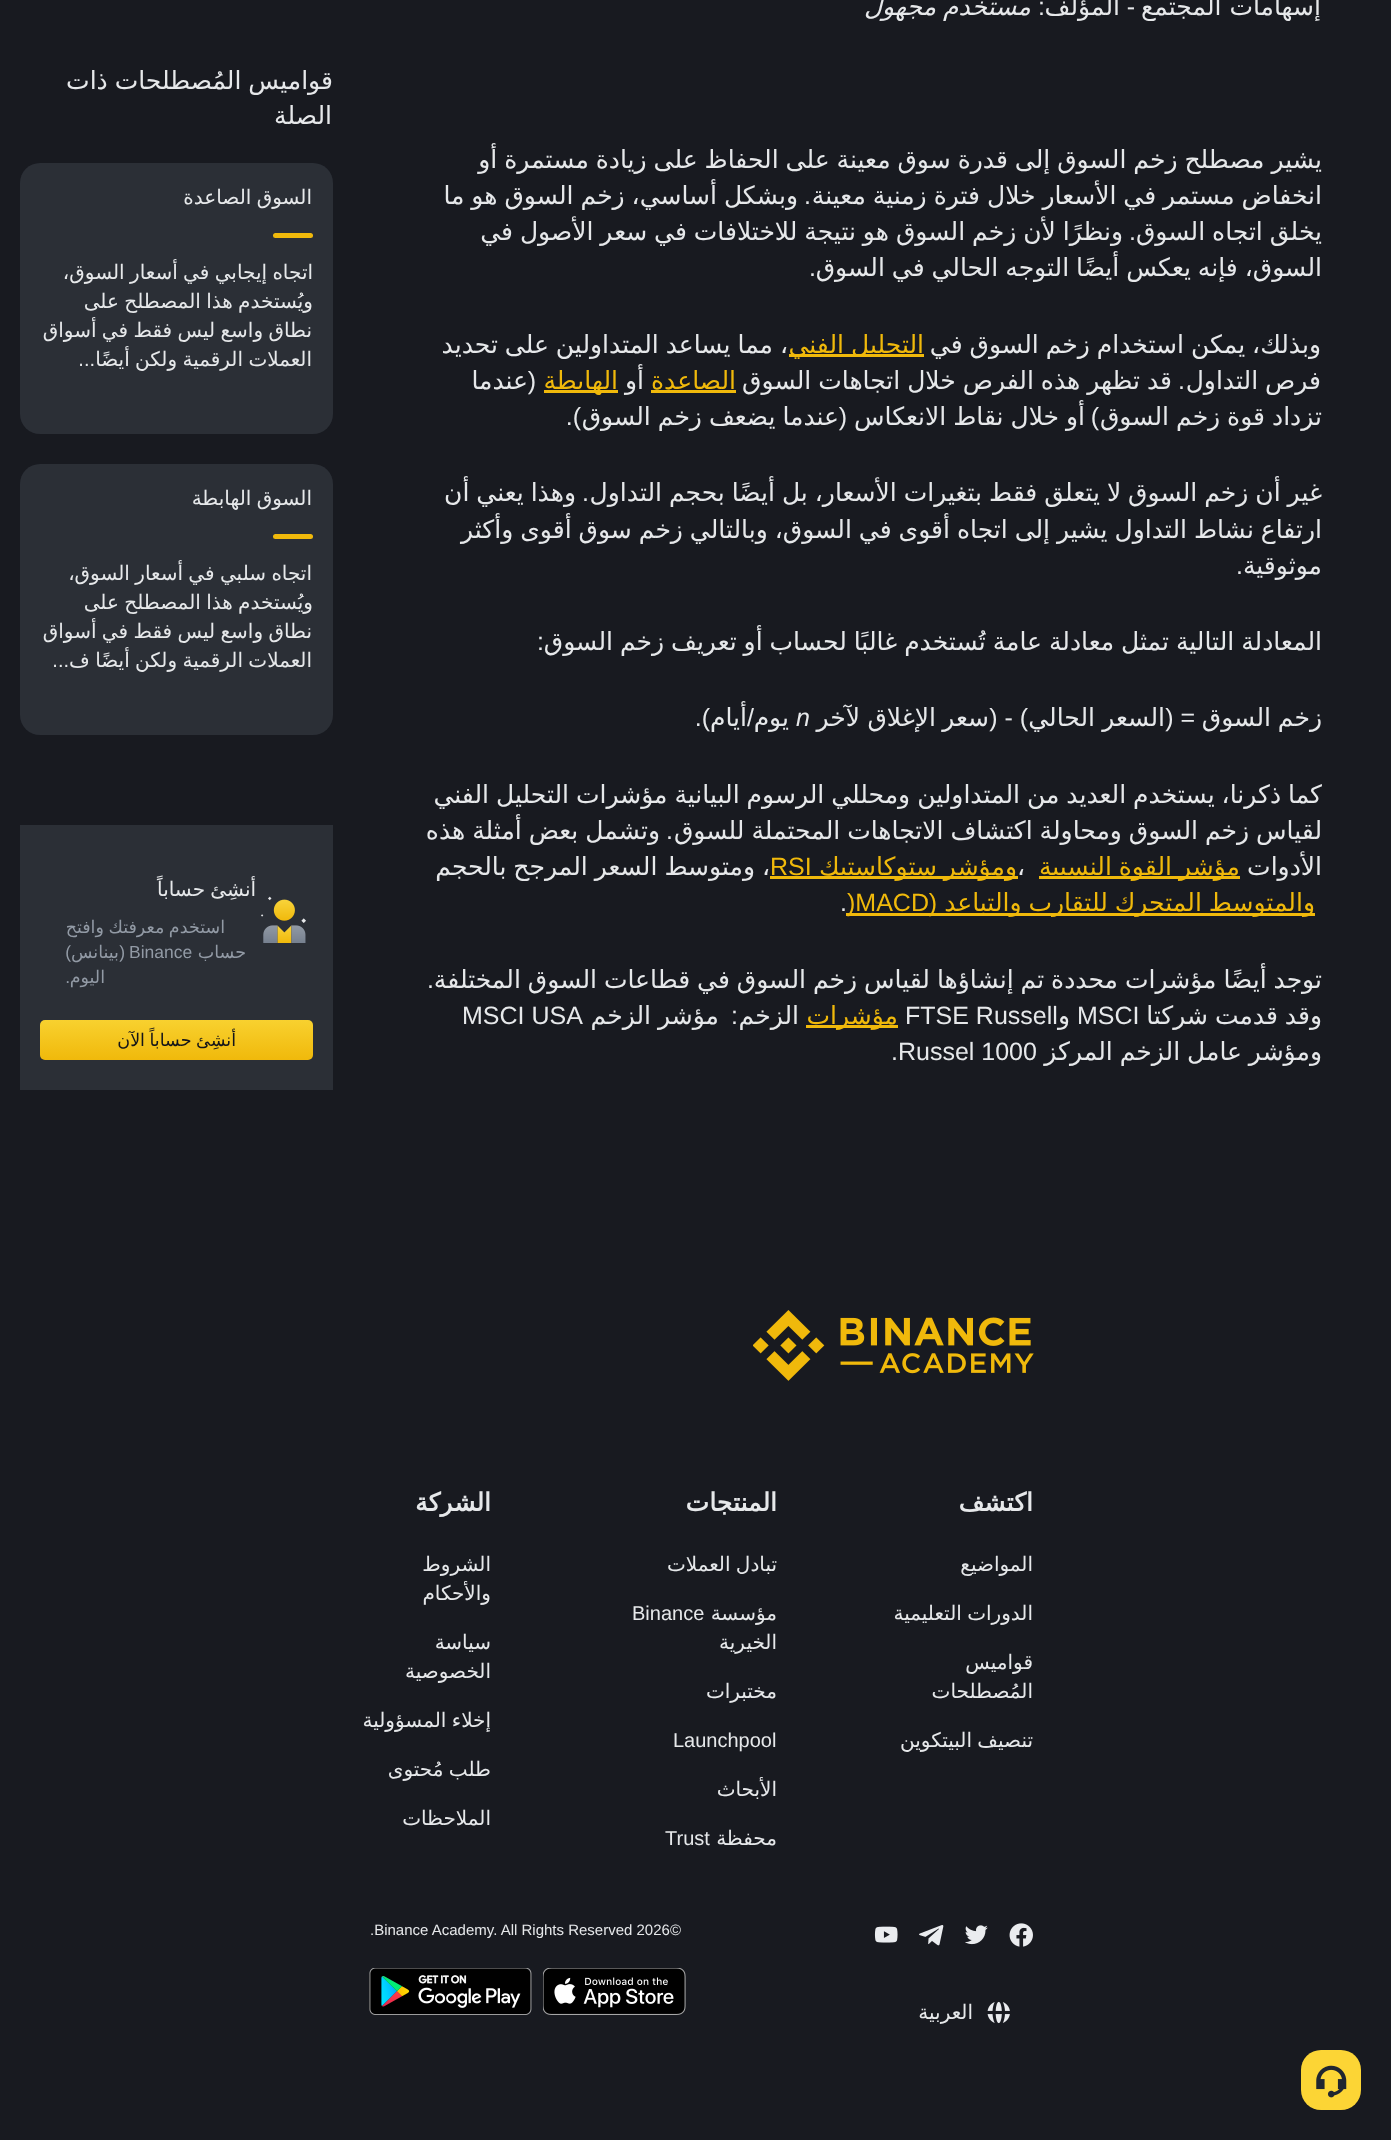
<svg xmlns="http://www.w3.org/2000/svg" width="1391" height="2140">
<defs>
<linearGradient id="g1" gradientUnits="userSpaceOnUse" x1="176" y1="1020" x2="176" y2="1060"><stop offset="0" stop-color="#f8d12f"/><stop offset="1" stop-color="#f0b90b"/></linearGradient>
</defs>
<rect width="100%" height="100%" fill="#181a20"/>
<text x="1321" y="15" style="font-family:DejaVu Sans;font-size:25px;direction:rtl;fill:#e6e8ea">إسهامات المجتمع</text>
<text x="1135" y="15" style="font-family:Liberation Sans;font-size:25px;direction:rtl;fill:#e6e8ea">-</text>
<text x="1120" y="15" style="font-family:DejaVu Sans;font-size:25px;direction:rtl;fill:#e6e8ea">المؤلف</text>
<text x="1045" y="15" style="font-family:Liberation Sans;font-size:25px;direction:rtl;fill:#e6e8ea">:</text>
<text x="1031" y="15" word-spacing="-1" style="font-family:DejaVu Sans;font-size:25px;font-style:italic;direction:rtl;fill:#e6e8ea">مستخدم مجهول</text>
<text x="1322" y="168" word-spacing="-1" style="font-family:DejaVu Sans;font-size:25px;direction:rtl;fill:#e6e8ea">يشير مصطلح زخم السوق إلى قدرة سوق معينة على الحفاظ على زيادة مستمرة أو</text>
<text x="1322" y="204" word-spacing="-1" style="font-family:DejaVu Sans;font-size:25px;direction:rtl;fill:#e6e8ea">انخفاض مستمر في الأسعار خلال فترة زمنية معينة</text>
<text x="811" y="204" style="font-family:Liberation Sans;font-size:25px;direction:rtl;fill:#e6e8ea">.</text>
<text x="798" y="204" word-spacing="-1" style="font-family:DejaVu Sans;font-size:25px;direction:rtl;fill:#e6e8ea">وبشكل أساسي، زخم السوق هو ما</text>
<text x="1322" y="240" word-spacing="-1" style="font-family:DejaVu Sans;font-size:25px;direction:rtl;fill:#e6e8ea">يخلق اتجاه السوق</text>
<text x="1136" y="240" style="font-family:Liberation Sans;font-size:25px;direction:rtl;fill:#e6e8ea">.</text>
<text x="1123" y="240" word-spacing="-1" style="font-family:DejaVu Sans;font-size:25px;direction:rtl;fill:#e6e8ea">ونظرًا لأن زخم السوق هو نتيجة للاختلافات في سعر الأصول في</text>
<text x="1322" y="276" word-spacing="-1" style="font-family:DejaVu Sans;font-size:25px;direction:rtl;fill:#e6e8ea">السوق، فإنه يعكس أيضًا التوجه الحالي في السوق</text>
<text x="816" y="276" style="font-family:Liberation Sans;font-size:25px;direction:rtl;fill:#e6e8ea">.</text>
<text x="1321" y="353" word-spacing="-1" style="font-family:DejaVu Sans;font-size:25px;direction:rtl;fill:#e6e8ea">وبذلك، يمكن استخدام زخم السوق في</text>
<rect x="789" y="354" width="135" height="3" fill="#f0b90b"/>
<text x="924" y="353" word-spacing="-1" style="font-family:DejaVu Sans;font-size:25px;direction:rtl;fill:#f0b90b">التحليل الفني</text>
<text x="788" y="353" word-spacing="-1" style="font-family:DejaVu Sans;font-size:25px;direction:rtl;fill:#e6e8ea">، مما يساعد المتداولين على تحديد</text>
<text x="1321" y="389" word-spacing="-1" style="font-family:DejaVu Sans;font-size:25px;direction:rtl;fill:#e6e8ea">فرص التداول</text>
<text x="1185" y="389" style="font-family:Liberation Sans;font-size:25px;direction:rtl;fill:#e6e8ea">.</text>
<text x="1172" y="389" word-spacing="-1" style="font-family:DejaVu Sans;font-size:25px;direction:rtl;fill:#e6e8ea">قد تظهر هذه الفرص خلال اتجاهات السوق</text>
<text x="736" y="389" style="font-family:DejaVu Sans;font-size:25px;direction:rtl;fill:#f0b90b">الصاعدة</text>
<rect x="651" y="390" width="85" height="3" fill="#f0b90b"/>
<text x="644" y="389" style="font-family:DejaVu Sans;font-size:25px;direction:rtl;fill:#e6e8ea">أو</text>
<rect x="544" y="390" width="74" height="3" fill="#f0b90b"/>
<text x="618" y="389" style="font-family:DejaVu Sans;font-size:25px;direction:rtl;fill:#f0b90b">الهابطة</text>
<text x="536" y="389" style="font-family:Liberation Sans;font-size:25px;direction:rtl;fill:#e6e8ea">(</text>
<text x="528" y="389" style="font-family:DejaVu Sans;font-size:25px;direction:rtl;fill:#e6e8ea">عندما</text>
<text x="1322" y="425" word-spacing="-1" style="font-family:DejaVu Sans;font-size:25px;direction:rtl;fill:#e6e8ea">تزداد قوة زخم السوق</text>
<text x="1099" y="425" style="font-family:Liberation Sans;font-size:25px;direction:rtl;fill:#e6e8ea">)</text>
<text x="1085" y="425" word-spacing="-1" style="font-family:DejaVu Sans;font-size:25px;direction:rtl;fill:#e6e8ea">أو خلال نقاط الانعكاس</text>
<text x="847" y="425" style="font-family:Liberation Sans;font-size:25px;direction:rtl;fill:#e6e8ea">(</text>
<text x="839" y="425" word-spacing="-1" style="font-family:DejaVu Sans;font-size:25px;direction:rtl;fill:#e6e8ea">عندما يضعف زخم السوق</text>
<text x="581" y="425" style="font-family:Liberation Sans;font-size:25px;direction:rtl;fill:#e6e8ea">).</text>
<text x="1322" y="501" word-spacing="-1" style="font-family:DejaVu Sans;font-size:25px;direction:rtl;fill:#e6e8ea">غير أن زخم السوق لا يتعلق فقط بتغيرات الأسعار، بل أيضًا بحجم التداول</text>
<text x="589" y="501" style="font-family:Liberation Sans;font-size:25px;direction:rtl;fill:#e6e8ea">.</text>
<text x="576" y="501" word-spacing="-1" style="font-family:DejaVu Sans;font-size:25px;direction:rtl;fill:#e6e8ea">وهذا يعني أن</text>
<text x="1322" y="538" word-spacing="-1" style="font-family:DejaVu Sans;font-size:25px;direction:rtl;fill:#e6e8ea">ارتفاع نشاط التداول يشير إلى اتجاه أقوى في السوق، وبالتالي زخم سوق أقوى وأكثر</text>
<text x="1322" y="574" style="font-family:DejaVu Sans;font-size:25px;direction:rtl;fill:#e6e8ea">موثوقية</text>
<text x="1243" y="574" style="font-family:Liberation Sans;font-size:25px;direction:rtl;fill:#e6e8ea">.</text>
<text x="1322" y="650" word-spacing="-1" style="font-family:DejaVu Sans;font-size:25px;direction:rtl;fill:#e6e8ea">المعادلة التالية تمثل معادلة عامة تُستخدم غالبًا لحساب أو تعريف زخم السوق</text>
<text x="544" y="650" style="font-family:Liberation Sans;font-size:25px;direction:rtl;fill:#e6e8ea">:</text>
<text x="1322" y="726" style="font-family:DejaVu Sans;font-size:25px;direction:rtl;fill:#e6e8ea">زخم</text>
<text x="1271" y="726" style="font-family:DejaVu Sans;font-size:25px;direction:rtl;fill:#e6e8ea">السوق</text>
<text x="1195" y="726" style="font-family:Liberation Sans;font-size:25px;direction:rtl;fill:#e6e8ea">= (</text>
<text x="1165" y="726" style="font-family:DejaVu Sans;font-size:25px;direction:rtl;fill:#e6e8ea">السعر</text>
<text x="1095" y="726" style="font-family:DejaVu Sans;font-size:25px;direction:rtl;fill:#e6e8ea">الحالي</text>
<text x="1028" y="726" style="font-family:Liberation Sans;font-size:25px;direction:rtl;fill:#e6e8ea">) - (</text>
<text x="989" y="726" style="font-family:DejaVu Sans;font-size:25px;direction:rtl;fill:#e6e8ea">سعر</text>
<text x="936" y="726" style="font-family:DejaVu Sans;font-size:25px;direction:rtl;fill:#e6e8ea">الإغلاق</text>
<text x="860" y="726" style="font-family:DejaVu Sans;font-size:25px;direction:rtl;fill:#e6e8ea">لآخر</text>
<text x="796" y="726" style="font-family:Liberation Sans;font-size:25px;font-style:italic;fill:#e6e8ea">n</text>
<text x="789" y="726" style="font-family:DejaVu Sans;font-size:25px;direction:rtl;fill:#e6e8ea">يوم</text>
<text x="754" y="726" style="font-family:Liberation Sans;font-size:25px;direction:rtl;fill:#e6e8ea">/</text>
<text x="747" y="726" style="font-family:DejaVu Sans;font-size:25px;direction:rtl;fill:#e6e8ea">أيام</text>
<text x="710" y="726" style="font-family:Liberation Sans;font-size:25px;direction:rtl;fill:#e6e8ea">).</text>
<text x="1322" y="803" word-spacing="-1" style="font-family:DejaVu Sans;font-size:25px;direction:rtl;fill:#e6e8ea">كما ذكرنا، يستخدم العديد من المتداولين ومحللي الرسوم البيانية مؤشرات التحليل الفني</text>
<text x="1322" y="839" word-spacing="-1" style="font-family:DejaVu Sans;font-size:25px;direction:rtl;fill:#e6e8ea">لقياس زخم السوق ومحاولة اكتشاف الاتجاهات المحتملة للسوق</text>
<text x="673" y="839" style="font-family:Liberation Sans;font-size:25px;direction:rtl;fill:#e6e8ea">.</text>
<text x="660" y="839" word-spacing="-1" style="font-family:DejaVu Sans;font-size:25px;direction:rtl;fill:#e6e8ea">وتشمل بعض أمثلة هذه</text>
<text x="1322" y="875" style="font-family:DejaVu Sans;font-size:25px;direction:rtl;fill:#e6e8ea">الأدوات</text>
<rect x="1039" y="876" width="201" height="3" fill="#f0b90b"/>
<text x="1240" y="875" word-spacing="-1" style="font-family:DejaVu Sans;font-size:25px;direction:rtl;fill:#f0b90b">مؤشر القوة النسبية</text>
<text x="1017" y="875" style="font-family:DejaVu Sans;font-size:25px;fill:#e6e8ea">،</text>
<rect x="770" y="876" width="248" height="3" fill="#f0b90b"/>
<text x="1017" y="875" word-spacing="-1" style="font-family:DejaVu Sans;font-size:25px;direction:rtl;fill:#f0b90b">ومؤشر ستوكاستيك</text>
<text x="770" y="875" style="font-family:Liberation Sans;font-size:25px;fill:#f0b90b">RSI</text>
<text x="770" y="875" word-spacing="-1" style="font-family:DejaVu Sans;font-size:25px;direction:rtl;fill:#e6e8ea">، ومتوسط السعر المرجح بالحجم</text>
<rect x="846" y="913" width="469" height="3" fill="#f0b90b"/>
<text x="1315" y="911" word-spacing="-1" style="font-family:DejaVu Sans;font-size:25px;direction:rtl;fill:#f0b90b">والمتوسط المتحرك للتقارب والتباعد</text>
<text x="937" y="911" style="font-family:Liberation Sans;font-size:25px;direction:rtl;fill:#f0b90b">(</text>
<text x="847" y="911" style="font-family:Liberation Sans;font-size:25px;fill:#f0b90b">)MACD</text>
<text x="840" y="911" style="font-family:Liberation Sans;font-size:25px;fill:#e6e8ea">.</text>
<text x="1322" y="988" word-spacing="-1" style="font-family:DejaVu Sans;font-size:25px;direction:rtl;fill:#e6e8ea">توجد أيضًا مؤشرات محددة تم إنشاؤها لقياس زخم السوق في قطاعات السوق المختلفة</text>
<text x="434" y="988" style="font-family:Liberation Sans;font-size:25px;direction:rtl;fill:#e6e8ea">.</text>
<text x="1322" y="1024" word-spacing="-1" style="font-family:DejaVu Sans;font-size:25px;direction:rtl;fill:#e6e8ea">وقد قدمت شركتا</text>
<text x="1077" y="1024" style="font-family:Liberation Sans;font-size:25px;fill:#e6e8ea">MSCI</text>
<text x="1070" y="1024" style="font-family:DejaVu Sans;font-size:25px;direction:rtl;fill:#e6e8ea">و</text>
<text x="905" y="1024" style="font-family:Liberation Sans;font-size:25px;fill:#e6e8ea">FTSE Russell</text>
<rect x="806" y="1025" width="92" height="3" fill="#f0b90b"/>
<text x="898" y="1024" style="font-family:DejaVu Sans;font-size:25px;direction:rtl;fill:#f0b90b">مؤشرات</text>
<text x="799" y="1024" style="font-family:DejaVu Sans;font-size:25px;direction:rtl;fill:#e6e8ea">الزخم</text>
<text x="738" y="1024" style="font-family:Liberation Sans;font-size:25px;direction:rtl;fill:#e6e8ea">:</text>
<text x="719" y="1024" word-spacing="-1" style="font-family:DejaVu Sans;font-size:25px;direction:rtl;fill:#e6e8ea">مؤشر الزخم</text>
<text x="462" y="1024" style="font-family:Liberation Sans;font-size:25px;fill:#e6e8ea">MSCI USA</text>
<text x="1322" y="1060" word-spacing="-1" style="font-family:DejaVu Sans;font-size:25px;direction:rtl;fill:#e6e8ea">ومؤشر عامل الزخم المركز</text>
<text x="891" y="1060" style="font-family:Liberation Sans;font-size:25px;fill:#e6e8ea">.Russel 1000</text>
<text x="333" y="89" word-spacing="-1" style="font-family:DejaVu Sans;font-size:25px;direction:rtl;fill:#e6e8ea">قواميس المُصطلحات ذات</text>
<text x="332" y="124" style="font-family:DejaVu Sans;font-size:25px;direction:rtl;fill:#e6e8ea">الصلة</text>
<rect x="20" y="163" width="313" height="271" rx="20" fill="#2b2f36"/>
<text x="312" y="204" word-spacing="-1" style="font-family:DejaVu Sans;font-size:20px;direction:rtl;fill:#e6e8ea">السوق الصاعدة</text>
<rect x="273" y="233" width="40" height="5" rx="2.5" fill="#f0b90b"/>
<text x="313" y="279" word-spacing="-1" style="font-family:DejaVu Sans;font-size:20px;direction:rtl;fill:#e6e8ea">اتجاه إيجابي في أسعار السوق،</text>
<text x="313" y="308" word-spacing="-1" style="font-family:DejaVu Sans;font-size:20px;direction:rtl;fill:#e6e8ea">ويُستخدم هذا المصطلح على</text>
<text x="312" y="337" word-spacing="-1" style="font-family:DejaVu Sans;font-size:20px;direction:rtl;fill:#e6e8ea">نطاق واسع ليس فقط في أسواق</text>
<text x="312" y="366" word-spacing="-1" style="font-family:DejaVu Sans;font-size:20px;direction:rtl;fill:#e6e8ea">العملات الرقمية ولكن أيضًا</text>
<text x="95" y="366" style="font-family:Liberation Sans;font-size:20px;direction:rtl;fill:#e6e8ea">...</text>
<rect x="20" y="464" width="313" height="271" rx="20" fill="#2b2f36"/>
<text x="312" y="505" word-spacing="-1" style="font-family:DejaVu Sans;font-size:20px;direction:rtl;fill:#e6e8ea">السوق الهابطة</text>
<rect x="273" y="534" width="40" height="5" rx="2.5" fill="#f0b90b"/>
<text x="312" y="580" word-spacing="-1" style="font-family:DejaVu Sans;font-size:20px;direction:rtl;fill:#e6e8ea">اتجاه سلبي في أسعار السوق،</text>
<text x="313" y="609" word-spacing="-1" style="font-family:DejaVu Sans;font-size:20px;direction:rtl;fill:#e6e8ea">ويُستخدم هذا المصطلح على</text>
<text x="312" y="638" word-spacing="-1" style="font-family:DejaVu Sans;font-size:20px;direction:rtl;fill:#e6e8ea">نطاق واسع ليس فقط في أسواق</text>
<text x="312" y="667" word-spacing="-1" style="font-family:DejaVu Sans;font-size:20px;direction:rtl;fill:#e6e8ea">العملات الرقمية ولكن أيضًا ف</text>
<text x="69" y="667" style="font-family:Liberation Sans;font-size:20px;direction:rtl;fill:#e6e8ea">...</text>
<rect x="20" y="825" width="313" height="265" fill="#2b2f36"/>
<image x="261" y="896" width="45" height="47" href="media/1.png"/>
<text x="256" y="896" word-spacing="-1" style="font-family:DejaVu Sans;font-size:20px;direction:rtl;fill:#e6e8ea">أنشِئ حساباً</text>
<text x="225" y="933" word-spacing="-1" style="font-family:DejaVu Sans;font-size:17.5px;direction:rtl;fill:#929aa5">استخدم معرفتك وافتح</text>
<text x="246" y="958" style="font-family:DejaVu Sans;font-size:17.5px;direction:rtl;fill:#929aa5">حساب</text>
<text x="129" y="958" style="font-family:Liberation Sans;font-size:17.5px;fill:#929aa5">Binance</text>
<text x="125" y="958" style="font-family:Liberation Sans;font-size:17.5px;direction:rtl;fill:#929aa5">(</text>
<text x="119" y="958" style="font-family:DejaVu Sans;font-size:17.5px;direction:rtl;fill:#929aa5">بينانس</text>
<text x="71" y="958" style="font-family:Liberation Sans;font-size:17.5px;direction:rtl;fill:#929aa5">)</text>
<text x="105" y="983" style="font-family:DejaVu Sans;font-size:17.5px;direction:rtl;fill:#929aa5">اليوم</text>
<text x="70" y="983" style="font-family:Liberation Sans;font-size:17.5px;direction:rtl;fill:#929aa5">.</text>
<rect x="40" y="1020" width="273" height="40" rx="5" fill="url(#g1)"/>
<text x="236" y="1046" word-spacing="-1" style="font-family:DejaVu Sans;font-size:17.5px;direction:rtl;fill:#14151a">أنشِئ حساباً الآن</text>
<image x="753" y="1310" width="281" height="71" href="media/2.png"/>
<text x="1033" y="1511" style="font-family:DejaVu Sans;font-size:25px;font-weight:bold;direction:rtl;fill:#e6e8ea">اكتشف</text>
<text x="1033" y="1571" style="font-family:DejaVu Sans;font-size:20px;direction:rtl;fill:#e6e8ea">المواضيع</text>
<text x="1033" y="1620" word-spacing="-1" style="font-family:DejaVu Sans;font-size:20px;direction:rtl;fill:#e6e8ea">الدورات التعليمية</text>
<text x="1033" y="1669" style="font-family:DejaVu Sans;font-size:20px;direction:rtl;fill:#e6e8ea">قواميس</text>
<text x="1033" y="1698" style="font-family:DejaVu Sans;font-size:20px;direction:rtl;fill:#e6e8ea">المُصطلحات</text>
<text x="1033" y="1747" word-spacing="-1" style="font-family:DejaVu Sans;font-size:20px;direction:rtl;fill:#e6e8ea">تنصيف البيتكوين</text>
<text x="777" y="1511" style="font-family:DejaVu Sans;font-size:25px;font-weight:bold;direction:rtl;fill:#e6e8ea">المنتجات</text>
<text x="777" y="1571" word-spacing="-1" style="font-family:DejaVu Sans;font-size:20px;direction:rtl;fill:#e6e8ea">تبادل العملات</text>
<text x="777" y="1620" style="font-family:DejaVu Sans;font-size:20px;direction:rtl;fill:#e6e8ea">مؤسسة</text>
<text x="632" y="1620" style="font-family:Liberation Sans;font-size:20px;fill:#e6e8ea">Binance</text>
<text x="777" y="1649" style="font-family:DejaVu Sans;font-size:20px;direction:rtl;fill:#e6e8ea">الخيرية</text>
<text x="777" y="1698" style="font-family:DejaVu Sans;font-size:20px;direction:rtl;fill:#e6e8ea">مختبرات</text>
<text x="673" y="1747" style="font-family:Liberation Sans;font-size:20px;fill:#e6e8ea">Launchpool</text>
<text x="777" y="1796" style="font-family:DejaVu Sans;font-size:20px;direction:rtl;fill:#e6e8ea">الأبحاث</text>
<text x="777" y="1845" style="font-family:DejaVu Sans;font-size:20px;direction:rtl;fill:#e6e8ea">محفظة</text>
<text x="665" y="1845" style="font-family:Liberation Sans;font-size:20px;fill:#e6e8ea">Trust</text>
<text x="491" y="1511" style="font-family:DejaVu Sans;font-size:25px;font-weight:bold;direction:rtl;fill:#e6e8ea">الشركة</text>
<text x="491" y="1571" style="font-family:DejaVu Sans;font-size:20px;direction:rtl;fill:#e6e8ea">الشروط</text>
<text x="491" y="1600" style="font-family:DejaVu Sans;font-size:20px;direction:rtl;fill:#e6e8ea">والأحكام</text>
<text x="491" y="1649" style="font-family:DejaVu Sans;font-size:20px;direction:rtl;fill:#e6e8ea">سياسة</text>
<text x="491" y="1678" style="font-family:DejaVu Sans;font-size:20px;direction:rtl;fill:#e6e8ea">الخصوصية</text>
<text x="491" y="1727" word-spacing="-1" style="font-family:DejaVu Sans;font-size:20px;direction:rtl;fill:#e6e8ea">إخلاء المسؤولية</text>
<text x="491" y="1776" word-spacing="-1" style="font-family:DejaVu Sans;font-size:20px;direction:rtl;fill:#e6e8ea">طلب مُحتوى</text>
<text x="491" y="1825" style="font-family:DejaVu Sans;font-size:20px;direction:rtl;fill:#e6e8ea">الملاحظات</text>
<text x="370" y="1935" style="font-family:Liberation Sans;font-size:15px;fill:#e6e8ea">.Binance Academy. All Rights Reserved 2026©</text>
<image x="1009" y="1923" width="24" height="24" href="media/3.png"/>
<image x="965" y="1925" width="23" height="20" href="media/4.png"/>
<image x="919" y="1925" width="25" height="21" href="media/5.png"/>
<image x="874" y="1926" width="24" height="17" href="media/6.png"/>
<image x="987" y="2001" width="23" height="23" href="media/7.png"/>
<text x="973" y="2019" style="font-family:DejaVu Sans;font-size:20px;direction:rtl;fill:#e6e8ea">العربية</text>
<image x="543" y="1968" width="143" height="47" href="media/8.png"/>
<image x="369" y="1968" width="163" height="47" href="media/9.png"/>
<rect x="1301" y="2050" width="60" height="60" rx="20" fill="#fcd535"/>
<image x="1316" y="2065" width="31" height="33" href="media/10.png"/>
</svg>
